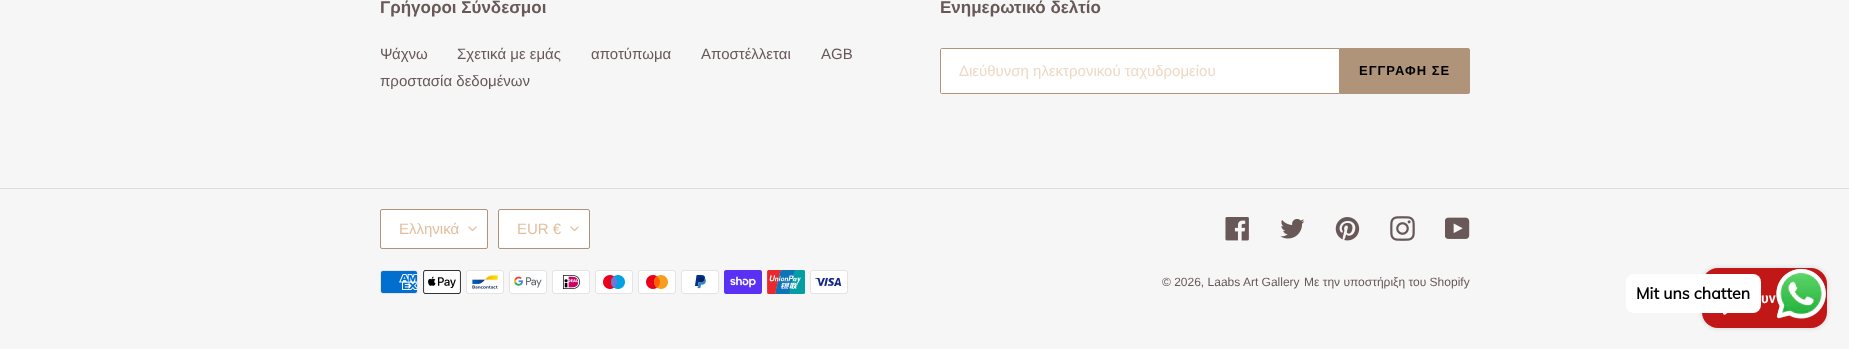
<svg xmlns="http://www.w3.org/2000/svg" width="1849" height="349">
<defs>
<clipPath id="clip1"><rect x="959" y="62" width="362" height="17"/></clipPath>
</defs>
<rect width="100%" height="100%" fill="#f6f6f6"/>
<text x="380" y="13" style="font-family:Liberation Sans;font-size:17px;font-weight:bold;fill:#685858">Γρήγοροι Σύνδεσμοι</text>
<text x="380" y="59" style="font-family:Liberation Sans;font-size:15px;fill:#685858">Ψάχνω</text>
<text x="457" y="59" style="font-family:Liberation Sans;font-size:15px;fill:#685858">Σχετικά με εμάς</text>
<text x="591" y="59" style="font-family:Liberation Sans;font-size:15px;fill:#685858">αποτύπωμα</text>
<text x="701" y="59" style="font-family:Liberation Sans;font-size:15px;fill:#685858">Αποστέλλεται</text>
<text x="821" y="59" style="font-family:Liberation Sans;font-size:15px;fill:#685858">AGB</text>
<text x="380" y="86" style="font-family:Liberation Sans;font-size:15px;fill:#685858">προστασία δεδομένων</text>
<text x="940" y="13" style="font-family:Liberation Sans;font-size:17px;font-weight:bold;fill:#685858">Ενημερωτικό δελτίο</text>
<path d="M942 48.5h397.5v45h-397.5c-1 0-1.5-.5-1.5-1.5v-42c0-1 .5-1.5 1.5-1.5z" fill="#fff" stroke="#af947a"/>
<g clip-path="url(#clip1)">
<text x="959" y="76" style="font-family:Liberation Sans;font-size:15px;fill:#edd9c4">Διεύθυνση ηλεκτρονικού ταχυδρομείου</text>
</g>
<path d="M1340 48h128c1 0 2 1 2 2v42c0 1-1 2-2 2h-128z" fill="#af947a"/>
<text x="1359" y="75" style="font-family:Liberation Sans;font-size:13px;font-weight:bold;letter-spacing:1px;fill:#000">ΕΓΓΡΑΦΗ ΣΕ</text>
<rect y="188" width="1849" height="1" fill="#ddd"/>
<rect x="380" y="209" width="108" height="40" rx="2" fill="#fff"/>
<image x="468" y="226" width="9" height="6" href="media/1.png"/>
<rect x="380.5" y="209.5" width="107" height="39" rx="1.5" fill="none" stroke="#af947a"/>
<text x="399" y="234" style="font-family:Liberation Sans;font-size:15px;fill:#e1bf9d">Ελληνικά</text>
<rect x="498" y="209" width="92" height="40" rx="2" fill="#fff"/>
<image x="570" y="226" width="9" height="6" href="media/1.png"/>
<rect x="498.5" y="209.5" width="91" height="39" rx="1.5" fill="none" stroke="#af947a"/>
<text x="517" y="234" style="font-family:Liberation Sans;font-size:15px;fill:#e1bf9d">EUR €</text>
<image x="1225" y="217" width="24" height="24" href="media/2.png"/>
<image x="1280" y="219" width="25" height="20" href="media/3.png"/>
<image x="1335" y="217" width="25" height="24" href="media/4.png"/>
<image x="1390" y="216" width="25" height="25" href="media/5.png"/>
<image x="1445" y="217" width="25" height="22" href="media/6.png"/>
<image x="380" y="270" width="38" height="24" href="media/7.png"/>
<image x="423" y="270" width="38" height="24" href="media/8.png"/>
<image x="466" y="270" width="38" height="24" href="media/9.png"/>
<image x="509" y="270" width="38" height="24" href="media/10.png"/>
<image x="552" y="270" width="38" height="24" href="media/11.png"/>
<image x="595" y="270" width="38" height="24" href="media/12.png"/>
<image x="638" y="270" width="38" height="24" href="media/13.png"/>
<image x="681" y="270" width="38" height="24" href="media/14.png"/>
<image x="724" y="270" width="38" height="24" href="media/15.png"/>
<image x="767" y="270" width="38" height="24" href="media/16.png"/>
<image x="810" y="270" width="38" height="24" href="media/17.png"/>
<text x="1162" y="286" style="font-family:Liberation Sans;font-size:12px;fill:#685858">© 2026, Laabs Art Gallery</text>
<text x="1304" y="286" style="font-family:Liberation Sans;font-size:12px;fill:#685858">Με την υποστήριξη του Shopify</text>
<rect x="1702" y="268" width="125" height="60" rx="16" fill="#00000026" filter="blur(2.5px)"/>
<rect x="1702" y="268" width="125" height="60" rx="16" fill="#c21717"/>
<image x="1776" y="269" width="50" height="50" href="media/18.png"/>
<rect x="1626" y="274" width="135" height="39" rx="8" fill="#fff"/>
<text x="1636" y="299" style="font-family:Muli;font-size:16px;font-weight:bold;fill:#000">Mit uns chatten</text>
<text x="1761" y="303" style="font-family:Roboto;font-size:14px;font-weight:600;fill:#fff">υν</text>
<image x="1723" y="313" width="5" height="2" href="media/19.png"/>
</svg>
